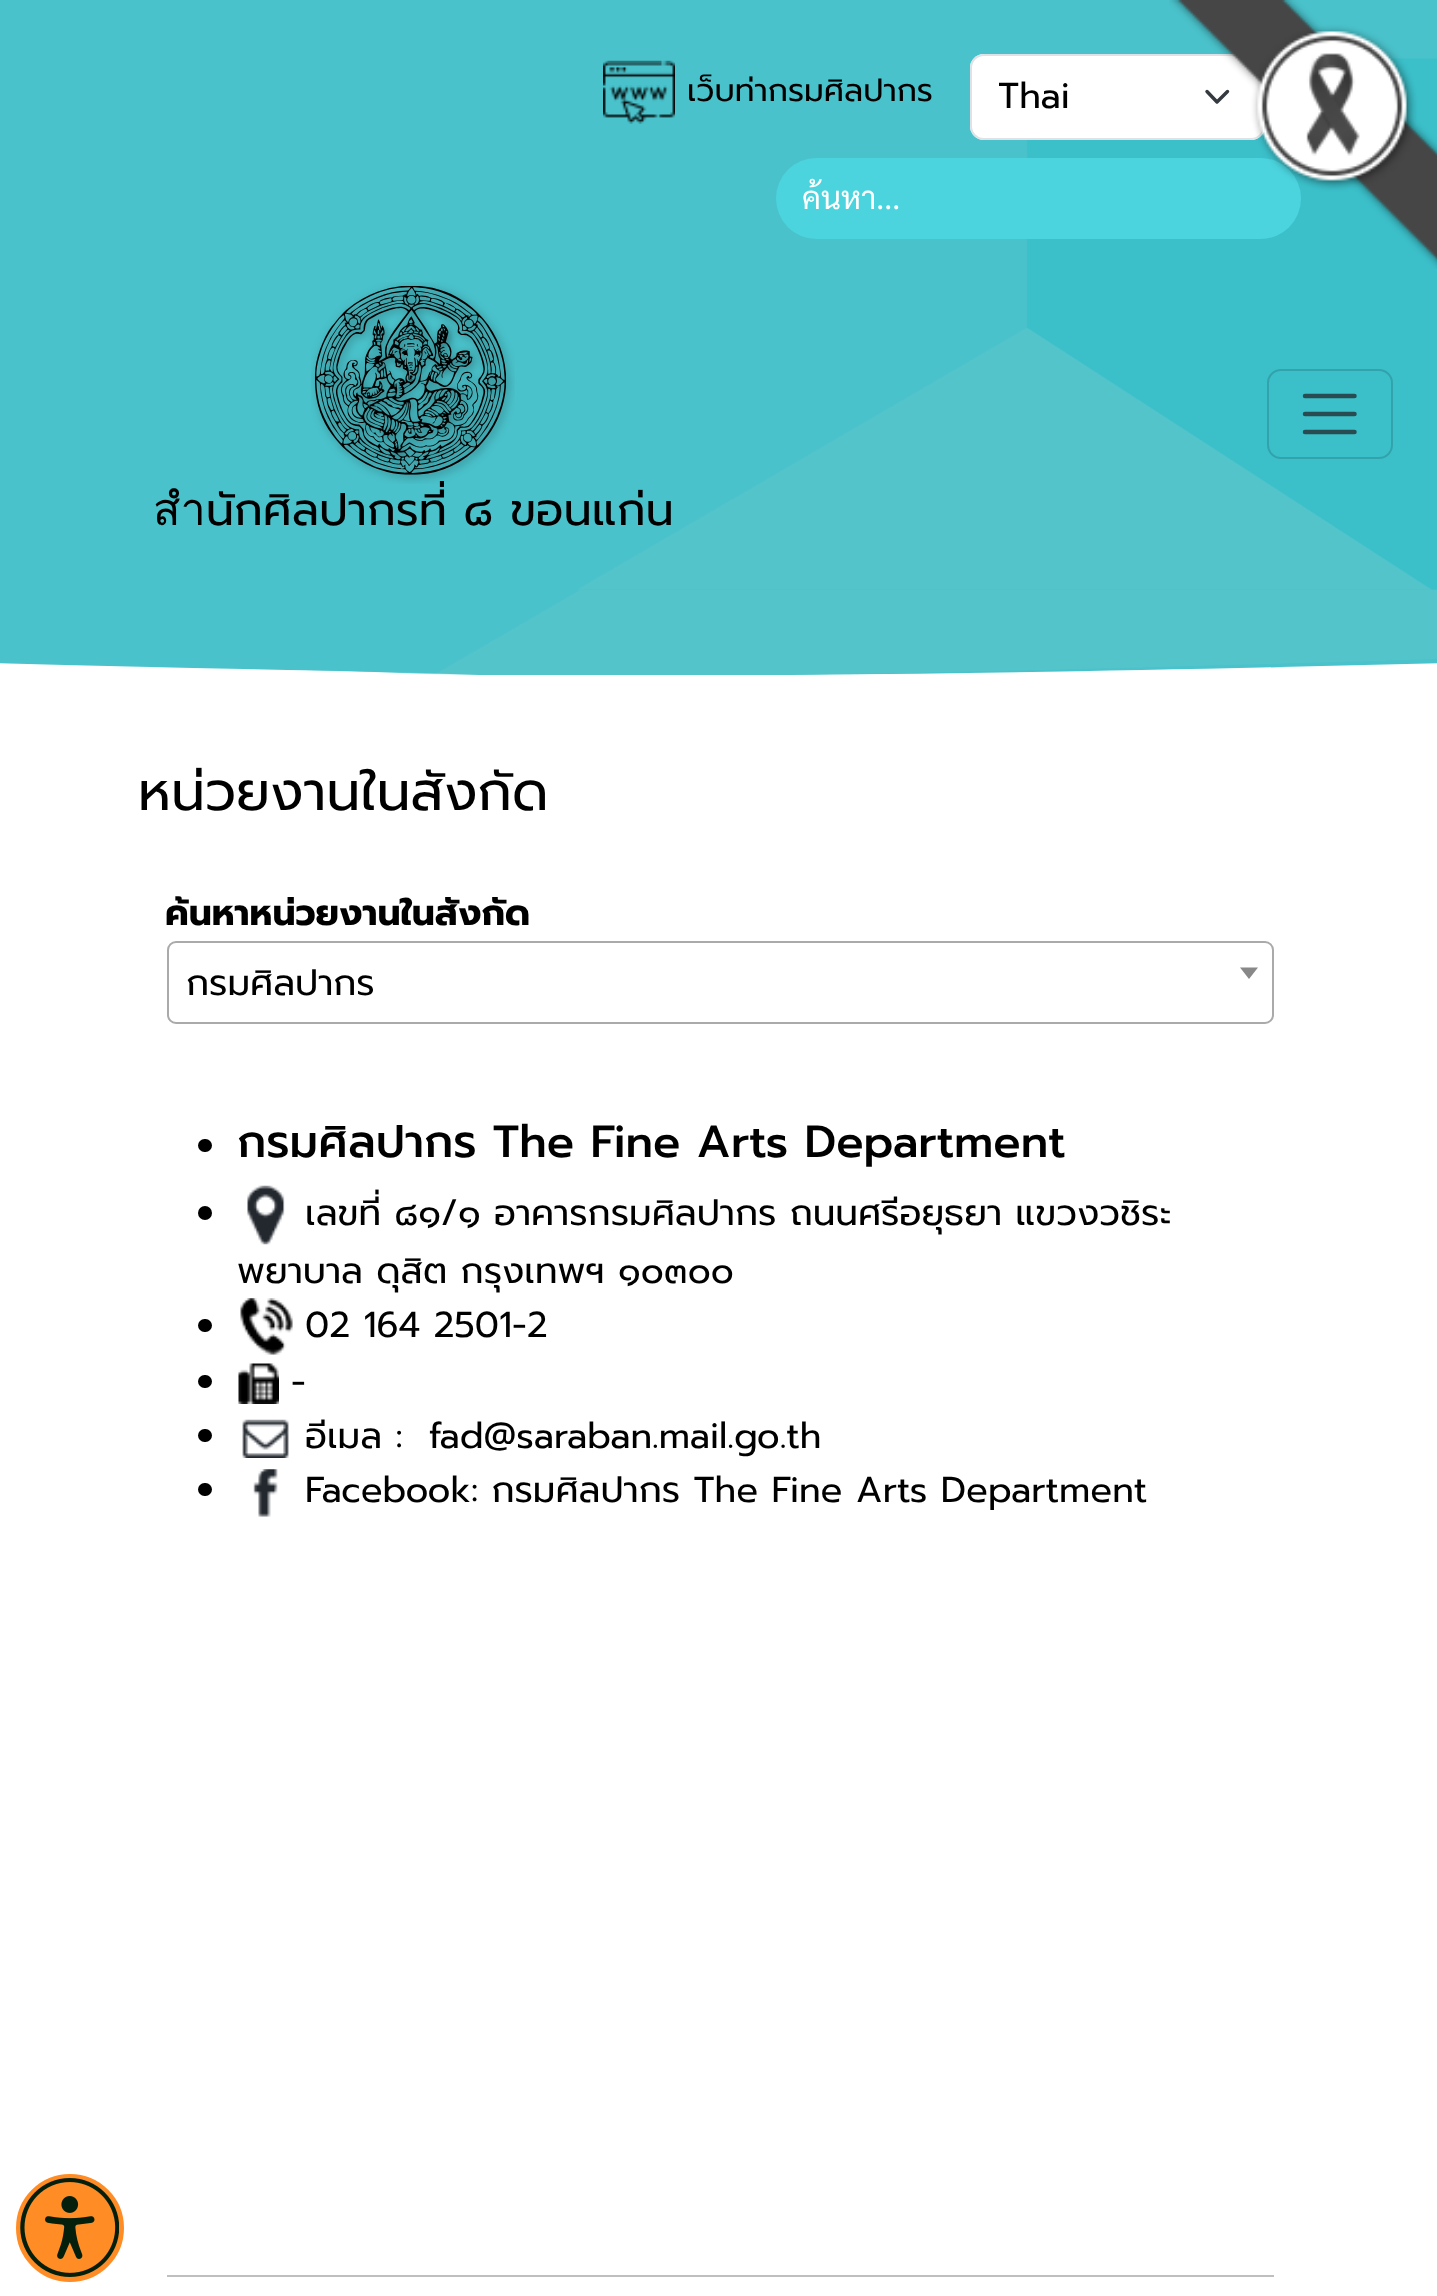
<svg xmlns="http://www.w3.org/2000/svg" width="1437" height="2296">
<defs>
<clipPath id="clip1"><rect x="999" y="70" width="182" height="54"/></clipPath>
<clipPath id="clip2"><rect x="803" y="176" width="437" height="40"/></clipPath>
</defs>
<rect width="100%" height="100%" fill="#fff"/>
<rect width="1437" height="590" fill="#4ac2cb"/>
<image x="578" y="58" width="859" height="532" href="media/1.png"/>
<image x="603" y="60" width="72" height="64" href="media/2.png"/>
<text x="687" y="101" style="font-family:Prompt;font-size:31.5px;fill:#000">เว็บท่ากรมศิลปากร</text>
<rect x="970" y="54" width="295" height="86" rx="14" fill="#fff"/>
<path d="M1207 91.5l10 10.5l10.5-10.5" fill="none" stroke="#343a40" stroke-width="3.4" stroke-linecap="round" stroke-linejoin="round"/>
<rect x="971" y="55" width="293" height="84" rx="13" fill="none" stroke="#dee2e6" stroke-width="2"/>
<g clip-path="url(#clip1)">
<text x="998" y="108" style="font-family:Prompt;font-size:36px;fill:#000">Thai</text>
</g>
<rect x="776" y="158" width="525" height="81" rx="40.5" fill="#4bd4de"/>
<g clip-path="url(#clip2)">
<text x="802" y="209" style="font-family:Sarabun;font-size:31.5px;fill:#fff">ค้นหา...</text>
</g>
<rect x="1268" y="370" width="124" height="88" rx="13" fill="none" stroke="#32a3ac" stroke-width="2"/>
<path d="M1305 396h49.5m-49.5 18h49.5m-49.5 18h49.5" fill="none" stroke="#284c51" stroke-width="4.5" stroke-linecap="round"/>
<text x="153" y="525" style="font-family:Prompt;font-size:45px;fill:#000">สำนักศิลปากรที่ ๘ ขอนแก่น</text>
<image x="311" y="282" width="204" height="202" href="media/3.png"/>
<image x="0" y="590" width="1437" height="85" href="media/4.png"/>
<text x="138" y="810" style="font-family:Prompt;font-size:54px;fill:#000">หน่วยงานในสังกัด</text>
<text x="165" y="925" style="font-family:Prompt;font-size:36px;font-weight:bold;fill:#000">ค้นหาหน่วยงานในสังกัด</text>
<rect x="168" y="942" width="1105" height="81" rx="8" fill="none" stroke="#aaa" stroke-width="2"/>
<text x="186" y="995" style="font-family:Prompt;font-size:36px;fill:#000">กรมศิลปากร</text>
<path d="M1240 967.5h18l-9 11.5z" fill="#888"/>
<rect x="198" y="1139" width="14" height="13" rx="6.5" fill="#000"/>
<text x="237" y="1157" style="font-family:Prompt;font-size:45px;font-weight:500;fill:#000">กรมศิลปากร The Fine Arts Department</text>
<circle cx="205" cy="1213" r="7" fill="#000"/>
<image x="247" y="1185" width="38" height="60" href="media/5.png"/>
<text x="305" y="1225" style="font-family:Prompt;font-size:36px;fill:#000">เลขที่ ๘๑/๑ อาคารกรมศิลปากร ถนนศรีอยุธยา แขวงวชิระ</text>
<text x="237" y="1283" style="font-family:Prompt;font-size:36px;fill:#000">พยาบาล ดุสิต กรุงเทพฯ ๑๐๓๐๐</text>
<rect x="198" y="1319" width="14" height="13" rx="6.5" fill="#000"/>
<image x="240" y="1298" width="53" height="57" href="media/6.png"/>
<text x="305" y="1337" style="font-family:Prompt;font-size:36px;fill:#000">02 164 2501-2</text>
<rect x="198" y="1375" width="14" height="13" rx="6.5" fill="#000"/>
<image x="238" y="1363" width="41" height="41" href="media/7.png"/>
<text x="291" y="1394" style="font-family:Prompt;font-size:36px;fill:#000">-</text>
<rect x="198" y="1429" width="14" height="13" rx="6.5" fill="#000"/>
<image x="242" y="1419" width="47" height="39" href="media/8.png"/>
<text x="305" y="1448" style="font-family:Prompt;font-size:36px;fill:#000">อีเมล :</text>
<text x="429" y="1448" style="font-family:Prompt;font-size:36px;fill:#000">fad@saraban.mail.go.th</text>
<rect x="198" y="1483" width="14" height="13" rx="6.5" fill="#000"/>
<image x="253" y="1469" width="25" height="48" href="media/9.png"/>
<text x="305" y="1502" style="font-family:Prompt;font-size:36px;fill:#000">Facebook: กรมศิลปากร The Fine Arts Department</text>
<rect x="167" y="2275" width="1107" height="2" fill="#bfbfbf"/>
<image x="1169" y="0" width="268" height="269" href="media/10.png"/>
<circle cx="70" cy="2228" r="51.5" fill="#ff8c24" stroke="#ff8c24" stroke-width="5"/>
<image x="20" y="2178" width="99" height="99" href="media/11.png"/>
</svg>
